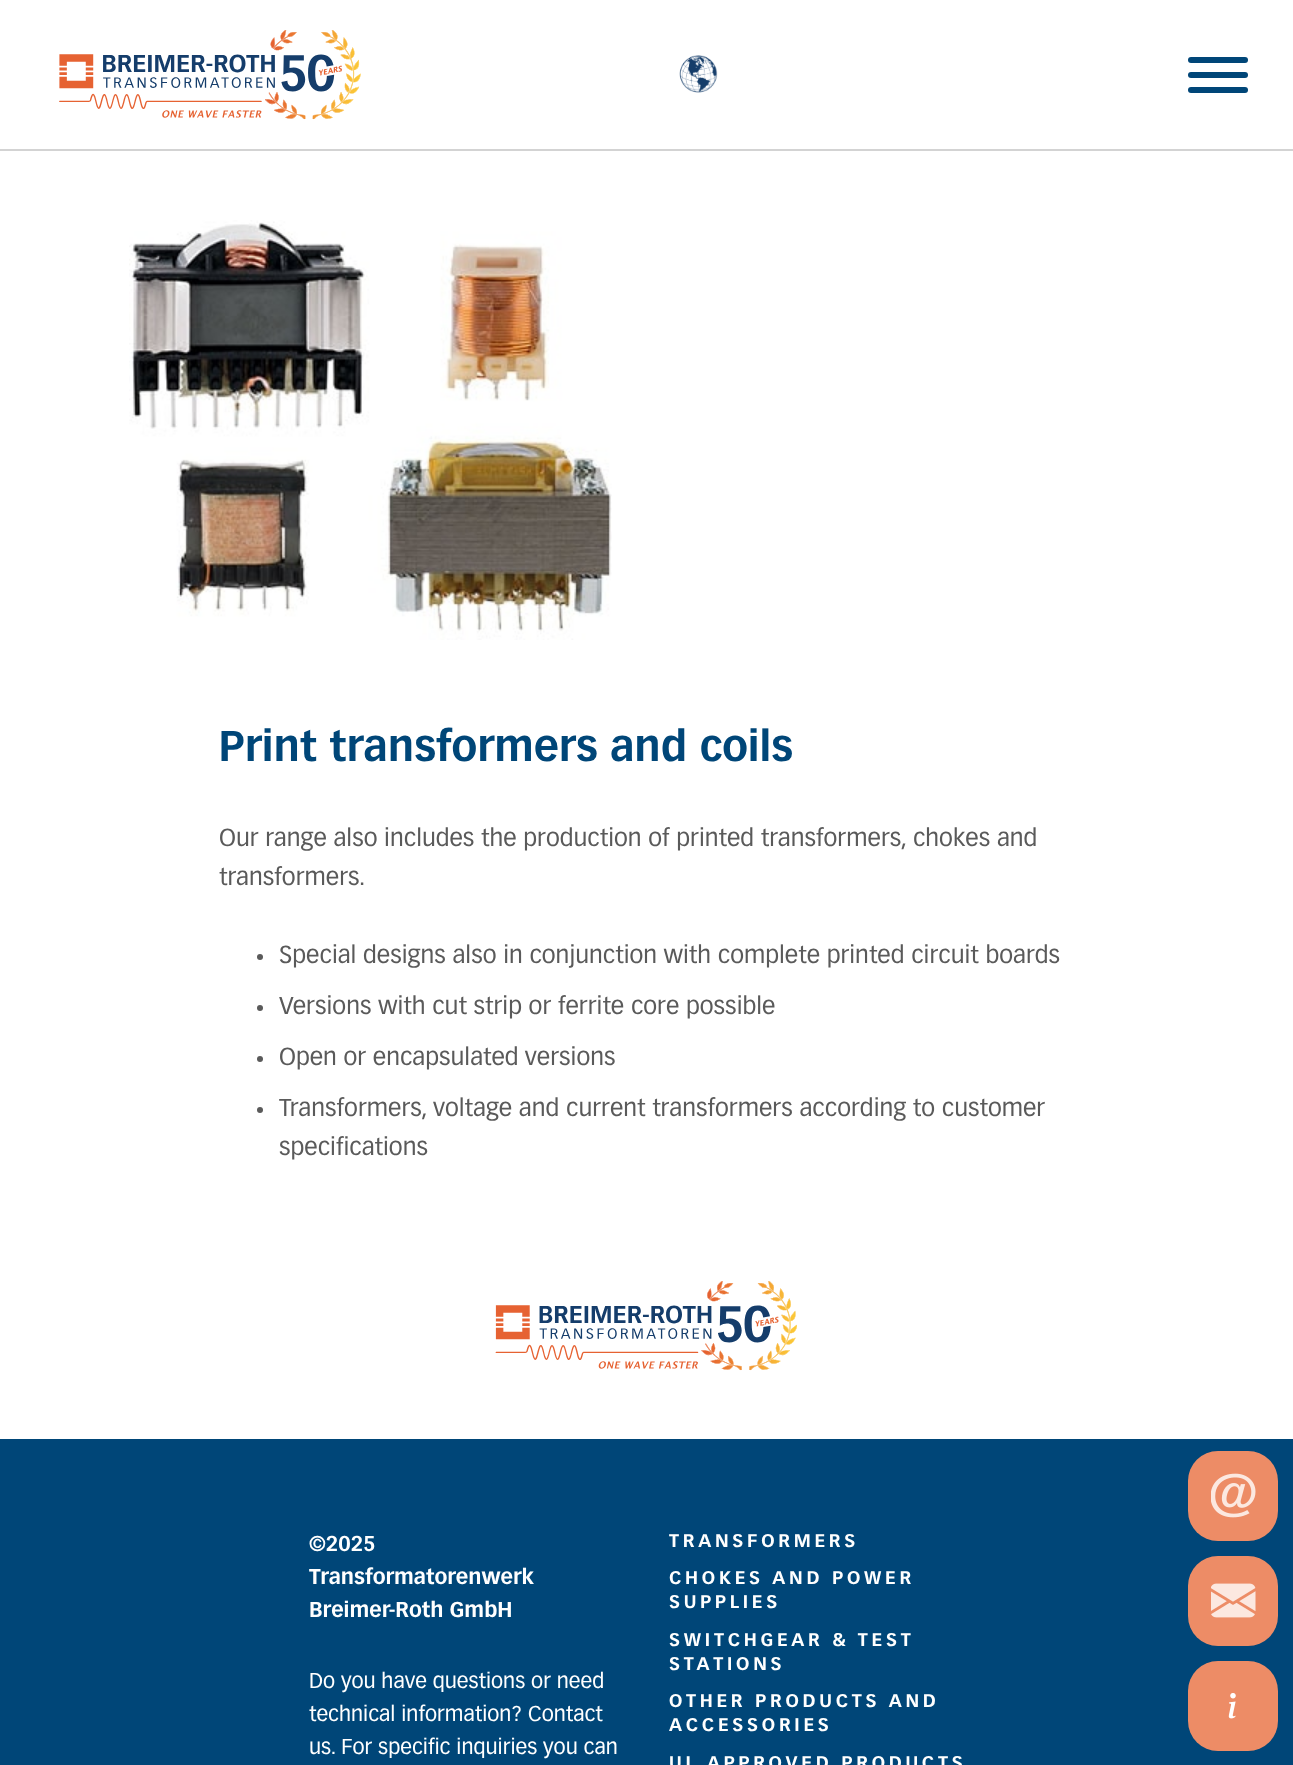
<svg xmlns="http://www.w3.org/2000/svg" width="1293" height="1765">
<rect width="100%" height="100%" fill="#fff"/>
<rect y="149" width="1293" height="2" fill="#d3d3d3"/>
<image x="59" y="30" width="302" height="90" href="media/1.png"/>
<image x="679" y="55" width="39" height="38" href="media/2.png"/>
<rect x="1188" y="57" width="60" height="6" rx="3" fill="#004678"/>
<rect x="1188" y="72" width="60" height="6" rx="3" fill="#004678"/>
<rect x="1188" y="87" width="60" height="6" rx="3" fill="#004678"/>
<image x="129" y="220" width="483" height="420" href="media/3.png"/>
<text x="219" y="761" style="font-family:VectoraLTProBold;font-size:42px;fill:#004678">Print transformers and coils</text>
<text x="219" y="846" style="font-family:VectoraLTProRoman;font-size:24px;fill:#5a5a5a">Our range also includes the production of printed transformers, chokes and</text>
<text x="219" y="885" style="font-family:VectoraLTProRoman;font-size:24px;fill:#5a5a5a">transformers.</text>
<circle cx="260" cy="957" r="3" fill="#5a5a5a"/>
<text x="279" y="963" style="font-family:VectoraLTProRoman;font-size:24px;fill:#5a5a5a">Special designs also in conjunction with complete printed circuit boards</text>
<circle cx="260" cy="1008" r="3" fill="#5a5a5a"/>
<text x="279" y="1014" style="font-family:VectoraLTProRoman;font-size:24px;fill:#5a5a5a">Versions with cut strip or ferrite core possible</text>
<circle cx="260" cy="1059" r="3" fill="#5a5a5a"/>
<text x="279" y="1065" style="font-family:VectoraLTProRoman;font-size:24px;fill:#5a5a5a">Open or encapsulated versions</text>
<circle cx="260" cy="1110" r="3" fill="#5a5a5a"/>
<text x="279" y="1116" style="font-family:VectoraLTProRoman;font-size:24px;fill:#5a5a5a">Transformers, voltage and current transformers according to customer</text>
<text x="279" y="1155" style="font-family:VectoraLTProRoman;font-size:24px;fill:#5a5a5a">specifications</text>
<image x="495" y="1281" width="302" height="90" href="media/4.png"/>
<rect y="1439" width="1293" height="326" fill="#004678"/>
<rect x="1188" y="1451" width="90" height="90" rx="30" fill="#ed8c66"/>
<image x="1211" y="1473" width="45" height="45" href="media/5.png"/>
<text x="309" y="1551" style="font-family:VectoraLTProBold;font-size:21px;fill:#fff">©2025</text>
<text x="309" y="1584" style="font-family:VectoraLTProBold;font-size:21px;fill:#fff">Transformatorenwerk</text>
<text x="309" y="1617" style="font-family:VectoraLTProBold;font-size:21px;fill:#fff">Breimer-Roth GmbH</text>
<text x="309" y="1688" style="font-family:VectoraLTProRoman;font-size:21px;fill:#fff">Do you have questions or need</text>
<text x="309" y="1721" style="font-family:VectoraLTProRoman;font-size:21px;fill:#fff">technical information? Contact</text>
<text x="309" y="1754" style="font-family:VectoraLTProRoman;font-size:21px;fill:#fff">us. For specific inquiries you can</text>
<text x="669" y="1547" style="font-family:VectoraLTProBold;font-size:18px;letter-spacing:3.75px;fill:#fff">TRANSFORMERS</text>
<text x="669" y="1584" style="font-family:VectoraLTProBold;font-size:18px;letter-spacing:3.75px;fill:#fff">CHOKES AND POWER</text>
<text x="669" y="1608" style="font-family:VectoraLTProBold;font-size:18px;letter-spacing:3.75px;fill:#fff">SUPPLIES</text>
<text x="669" y="1646" style="font-family:VectoraLTProBold;font-size:18px;letter-spacing:3.75px;fill:#fff">SWITCHGEAR &amp; TEST</text>
<text x="669" y="1670" style="font-family:VectoraLTProBold;font-size:18px;letter-spacing:3.75px;fill:#fff">STATIONS</text>
<text x="669" y="1707" style="font-family:VectoraLTProBold;font-size:18px;letter-spacing:3.75px;fill:#fff">OTHER PRODUCTS AND</text>
<text x="669" y="1731" style="font-family:VectoraLTProBold;font-size:18px;letter-spacing:3.75px;fill:#fff">ACCESSORIES</text>
<text x="669" y="1769" style="font-family:VectoraLTProBold;font-size:18px;letter-spacing:3.75px;fill:#fff">UL APPROVED PRODUCTS</text>
<rect x="1188" y="1556" width="90" height="90" rx="30" fill="#ed8c66"/>
<image x="1211" y="1583" width="45" height="35" href="media/6.png"/>
<rect x="1188" y="1661" width="90" height="90" rx="30" fill="#ed8c66"/>
<image x="1228" y="1693" width="8" height="26" href="media/7.png"/>
</svg>
